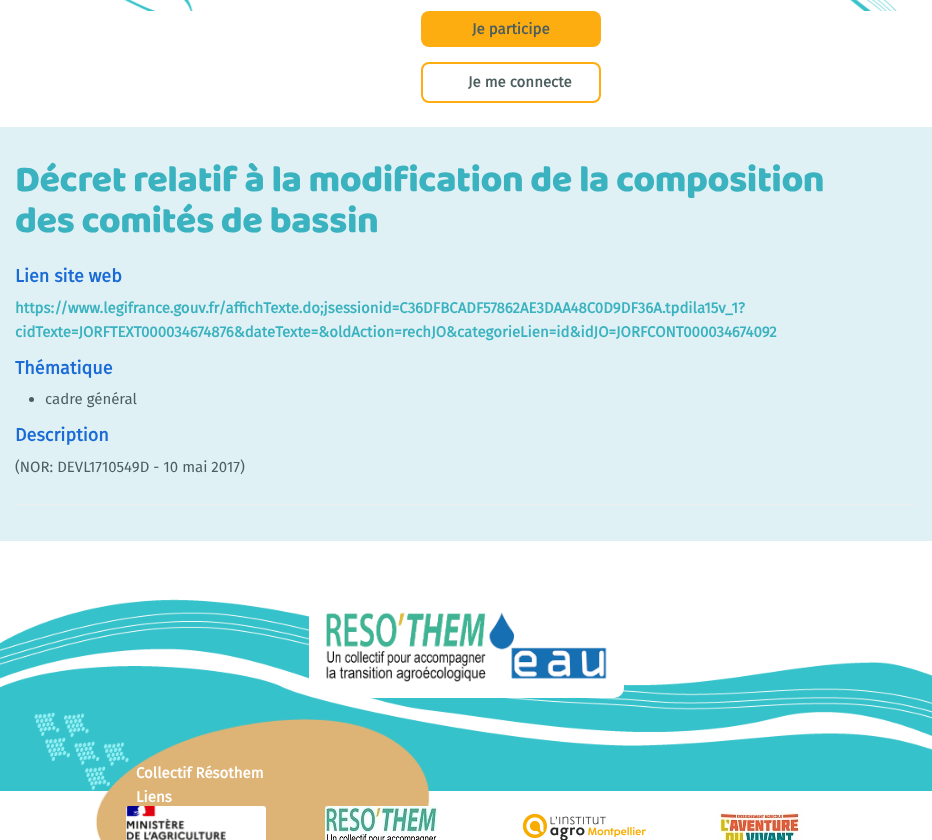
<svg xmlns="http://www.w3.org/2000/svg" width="932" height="840">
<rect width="100%" height="100%" fill="#dff1f5"/>
<rect width="932" height="127" fill="#fff"/>
<image x="123" y="0" width="774" height="11" href="media/1.png"/>
<rect x="421" y="11" width="180" height="36" rx="8" fill="#fead10"/>
<text x="472" y="34" style="font-family:Fira Sans;font-size:15px;font-weight:bold;fill:#4c5e5e">Je participe</text>
<rect x="422" y="63" width="178" height="39" rx="7" fill="none" stroke="#fead10" stroke-width="2"/>
<text x="468" y="87" style="font-family:Fira Sans;font-size:15px;font-weight:bold;fill:#4c5e5e">Je me connecte</text>
<text x="15" y="191" style="font-family:'Baloo 2';font-size:37.5px;font-weight:800;letter-spacing:-0.5px;fill:#3bb2bf">Décret relatif à la modification de la composition</text>
<text x="15" y="232" style="font-family:'Baloo 2';font-size:37.5px;font-weight:800;letter-spacing:-0.5px;fill:#3bb2bf">des comités de bassin</text>
<text x="15" y="282" style="font-family:Fira Sans;font-size:18px;font-weight:bold;fill:#1b6bd6">Lien site web</text>
<text x="15" y="313" style="font-family:Fira Sans;font-size:15px;font-weight:bold;fill:#3bb2bf">https://www.legifrance.gouv.fr/affichTexte.do;jsessionid=C36DFBCADF57862AE3DAA48C0D9DF36A.tpdila15v_1?</text>
<text x="15" y="337" style="font-family:Fira Sans;font-size:15px;font-weight:bold;fill:#3bb2bf">cidTexte=JORFTEXT000034674876&amp;dateTexte=&amp;oldAction=rechJO&amp;categorieLien=id&amp;idJO=JORFCONT000034674092</text>
<text x="15" y="374" style="font-family:Fira Sans;font-size:18px;font-weight:bold;fill:#1b6bd6">Thématique</text>
<circle cx="31.5" cy="399.5" r="2.5" fill="#4c5e5e"/>
<text x="45" y="404" style="font-family:Fira Sans;font-size:15px;fill:#4c5e5e">cadre général</text>
<text x="15" y="441" style="font-family:Fira Sans;font-size:18px;font-weight:bold;fill:#1b6bd6">Description</text>
<text x="15" y="472" style="font-family:Fira Sans;font-size:15px;fill:#4c5e5e">(NOR: DEVL1710549D - 10 mai 2017)</text>
<rect x="15" y="504" width="902" height="1" fill="#ebefef"/>
<rect y="541" width="932" height="145" fill="#fff"/>
<image x="0" y="599" width="932" height="192" href="media/2.png"/>
<rect x="309" y="595" width="315" height="103" rx="10" fill="#fff"/>
<image x="326" y="612" width="281" height="70" href="media/3.png"/>
<rect y="791" width="932" height="49" fill="#fff"/>
<image x="95" y="718" width="335" height="122" href="media/4.png"/>
<text x="136" y="778" style="font-family:Fira Sans;font-size:15px;font-weight:bold;fill:#fff">Collectif Résothem</text>
<text x="136" y="802" style="font-family:Fira Sans;font-size:15px;font-weight:bold;fill:#fff">Liens</text>
<image x="126" y="806" width="140" height="34" href="media/5.png"/>
<image x="325" y="806" width="113" height="34" href="media/6.png"/>
<image x="522" y="813" width="124" height="27" href="media/7.png"/>
<image x="716" y="806" width="88" height="34" href="media/8.png"/>
</svg>
